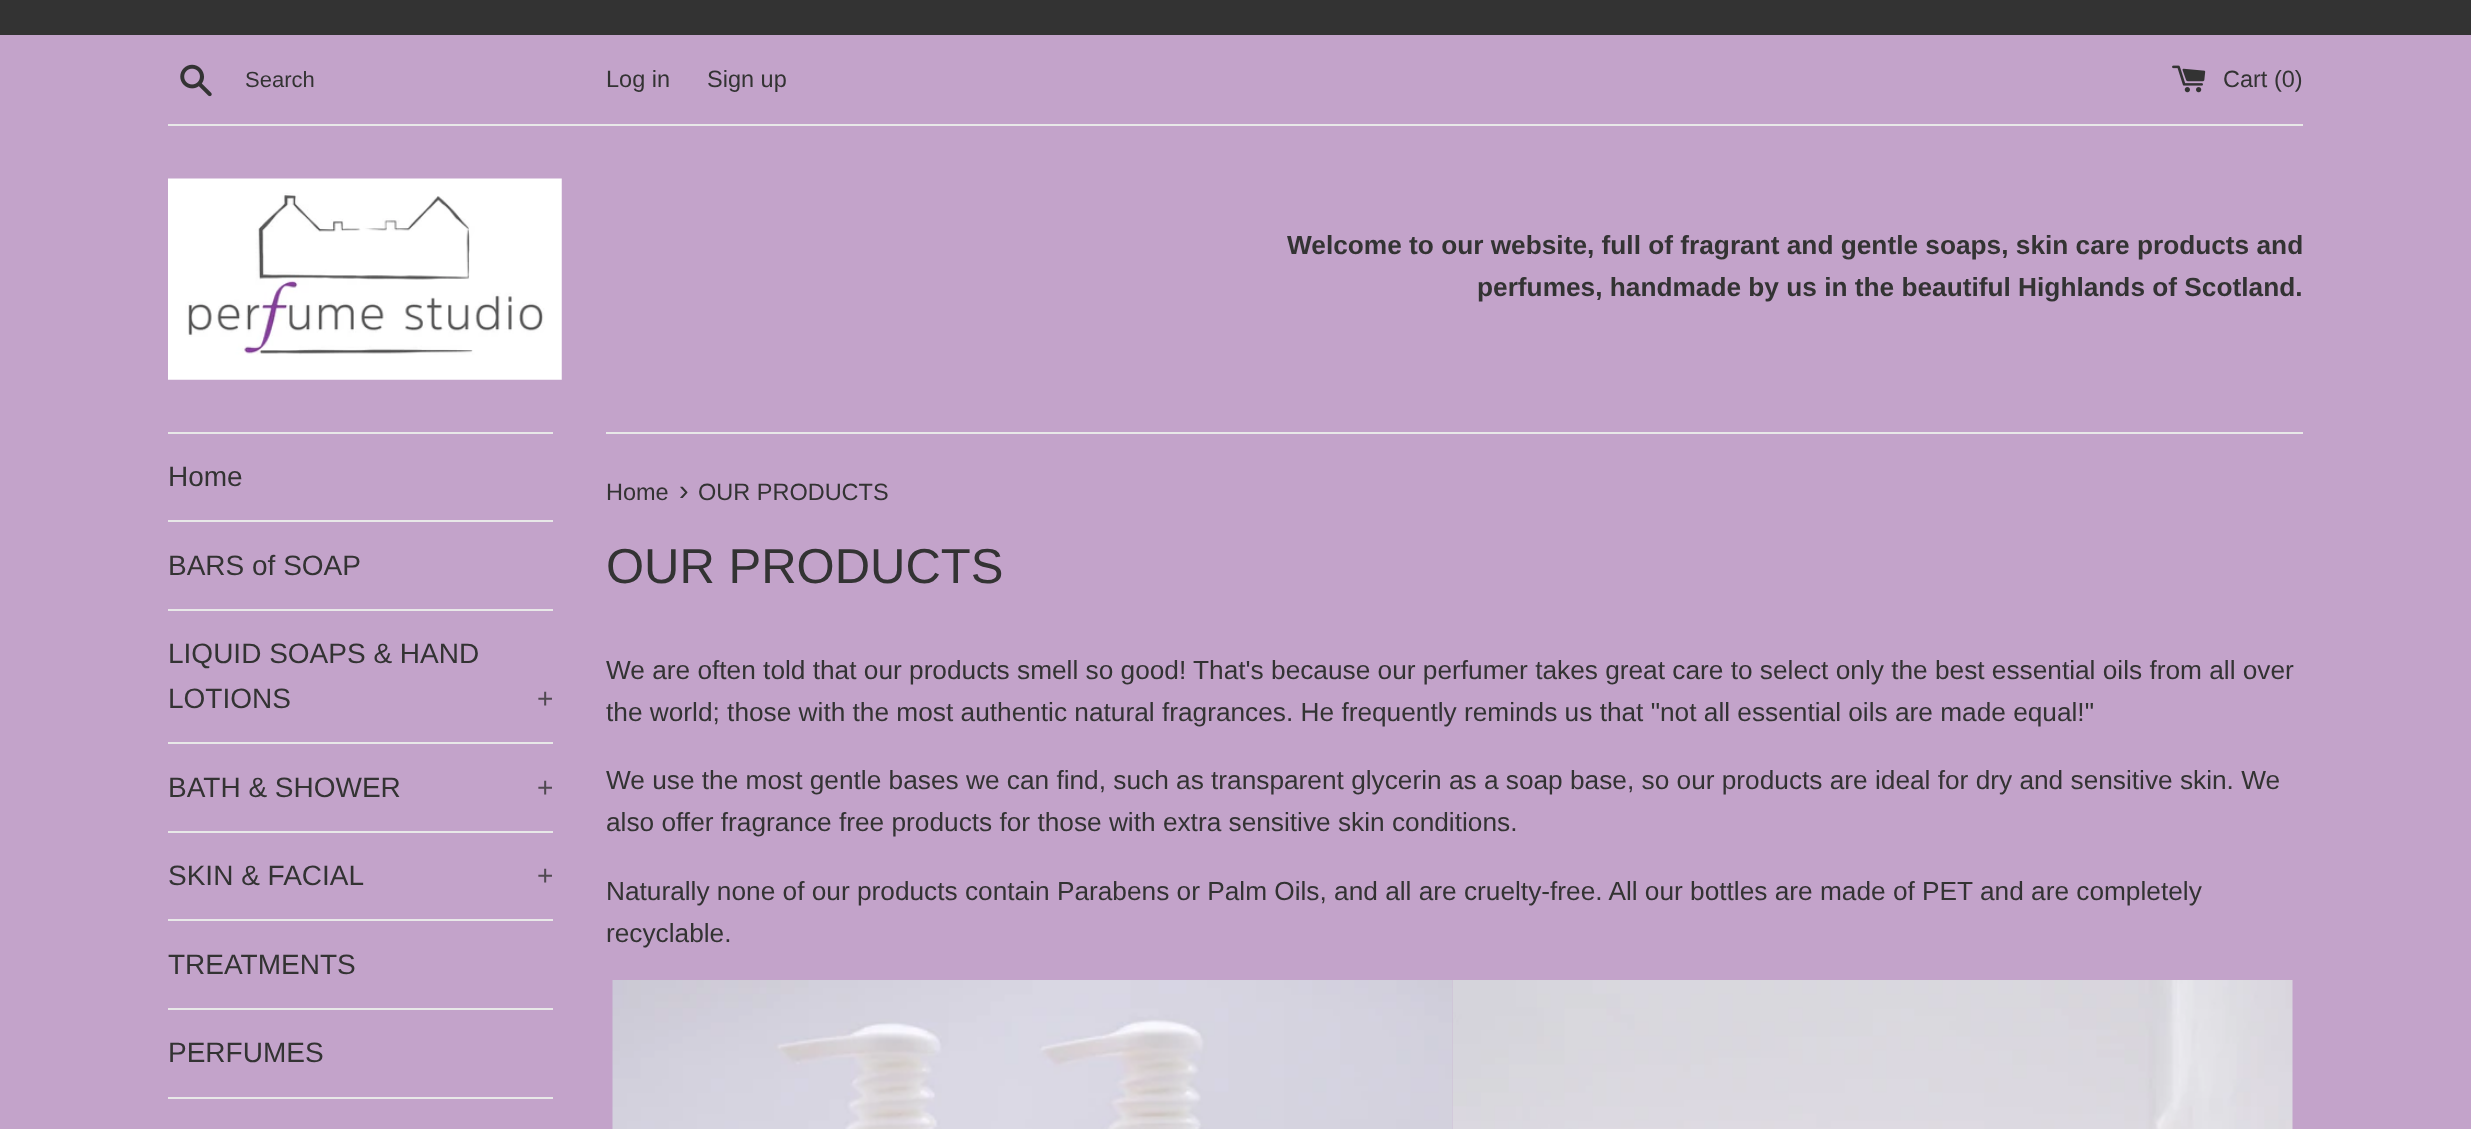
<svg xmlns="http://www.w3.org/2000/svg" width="2471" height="1129">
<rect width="100%" height="100%" fill="#c3a3ca"/>
<rect width="2471" height="35" fill="#333"/>
<image x="180" y="64" width="32" height="33" href="media/1.png"/>
<text x="245" y="87" style="font-family:Liberation Sans;font-size:22px;fill:#333">Search</text>
<text x="606" y="87" style="font-family:Liberation Sans;font-size:23.5px;fill:#333">Log in</text>
<text x="707" y="87" style="font-family:Liberation Sans;font-size:23.5px;fill:#333">Sign up</text>
<image x="2172" y="65" width="34" height="28" href="media/2.png"/>
<text x="2223" y="87" style="font-family:Liberation Sans;font-size:23.5px;fill:#333">Cart (0)</text>
<rect x="168" y="124" width="2135" height="2" fill="#e8e8e8"/>
<image x="168" y="178" width="394" height="202" href="media/3.png"/>
<text x="1287" y="254" style="font-family:Liberation Sans;font-size:26.25px;font-weight:bold;fill:#333">Welcome to our website, full of fragrant and gentle soaps, skin care products and</text>
<text x="1477" y="296" style="font-family:Liberation Sans;font-size:26.25px;font-weight:bold;fill:#333">perfumes, handmade by us in the beautiful Highlands of Scotland.</text>
<rect x="168" y="432" width="385" height="2" fill="#e8e8e8"/>
<rect x="168" y="520" width="385" height="2" fill="#e8e8e8"/>
<text x="168" y="486" style="font-family:Liberation Sans;font-size:28px;fill:#333">Home</text>
<rect x="168" y="609" width="385" height="2" fill="#e8e8e8"/>
<text x="168" y="575" style="font-family:Liberation Sans;font-size:28px;fill:#333">BARS of SOAP</text>
<rect x="168" y="742" width="385" height="2" fill="#e8e8e8"/>
<text x="168" y="663" style="font-family:Liberation Sans;font-size:28px;fill:#333">LIQUID SOAPS &amp; HAND</text>
<text x="168" y="708" style="font-family:Liberation Sans;font-size:28px;fill:#333">LOTIONS</text>
<text x="537" y="708" style="font-family:Liberation Sans;font-size:28px;fill:#504951">+</text>
<rect x="168" y="831" width="385" height="2" fill="#e8e8e8"/>
<text x="168" y="797" style="font-family:Liberation Sans;font-size:28px;fill:#333">BATH &amp; SHOWER</text>
<text x="537" y="797" style="font-family:Liberation Sans;font-size:28px;fill:#504951">+</text>
<rect x="168" y="919" width="385" height="2" fill="#e8e8e8"/>
<text x="168" y="885" style="font-family:Liberation Sans;font-size:28px;fill:#333">SKIN &amp; FACIAL</text>
<text x="537" y="885" style="font-family:Liberation Sans;font-size:28px;fill:#504951">+</text>
<rect x="168" y="1008" width="385" height="2" fill="#e8e8e8"/>
<text x="168" y="974" style="font-family:Liberation Sans;font-size:28px;fill:#333">TREATMENTS</text>
<rect x="168" y="1097" width="385" height="2" fill="#e8e8e8"/>
<text x="168" y="1062" style="font-family:Liberation Sans;font-size:28px;fill:#333">PERFUMES</text>
<rect x="606" y="432" width="1697" height="2" fill="#e8e8e8"/>
<text x="606" y="500" style="font-family:Liberation Sans;font-size:23.5px;fill:#333">Home</text>
<text x="679" y="500" style="font-family:Liberation Sans;font-size:29px;fill:#333">›</text>
<text x="698" y="500" style="font-family:Liberation Sans;font-size:23.5px;fill:#333">OUR PRODUCTS</text>
<text x="606" y="583" style="font-family:Liberation Sans;font-size:49px;fill:#333">OUR PRODUCTS</text>
<text x="606" y="679" style="font-family:Liberation Sans;font-size:26.25px;fill:#333">We are often told that our products smell so good! That's because our perfumer takes great care to select only the best essential oils from all over</text>
<text x="606" y="721" style="font-family:Liberation Sans;font-size:26.25px;fill:#333">the world; those with the most authentic natural fragrances. He frequently reminds us that "not all essential oils are made equal!"</text>
<text x="606" y="789" style="font-family:Liberation Sans;font-size:26.25px;fill:#333">We use the most gentle bases we can find, such as transparent glycerin as a soap base, so our products are ideal for dry and sensitive skin. We</text>
<text x="606" y="831" style="font-family:Liberation Sans;font-size:26.25px;fill:#333">also offer fragrance free products for those with extra sensitive skin conditions.</text>
<text x="606" y="900" style="font-family:Liberation Sans;font-size:26.25px;fill:#333">Naturally none of our products contain Parabens or Palm Oils, and all are cruelty-free. All our bottles are made of PET and are completely</text>
<text x="606" y="942" style="font-family:Liberation Sans;font-size:26.25px;fill:#333">recyclable.</text>
<image x="612" y="980" width="841" height="149" href="media/4.png"/>
<image x="1452" y="980" width="841" height="149" href="media/5.png"/>
</svg>
